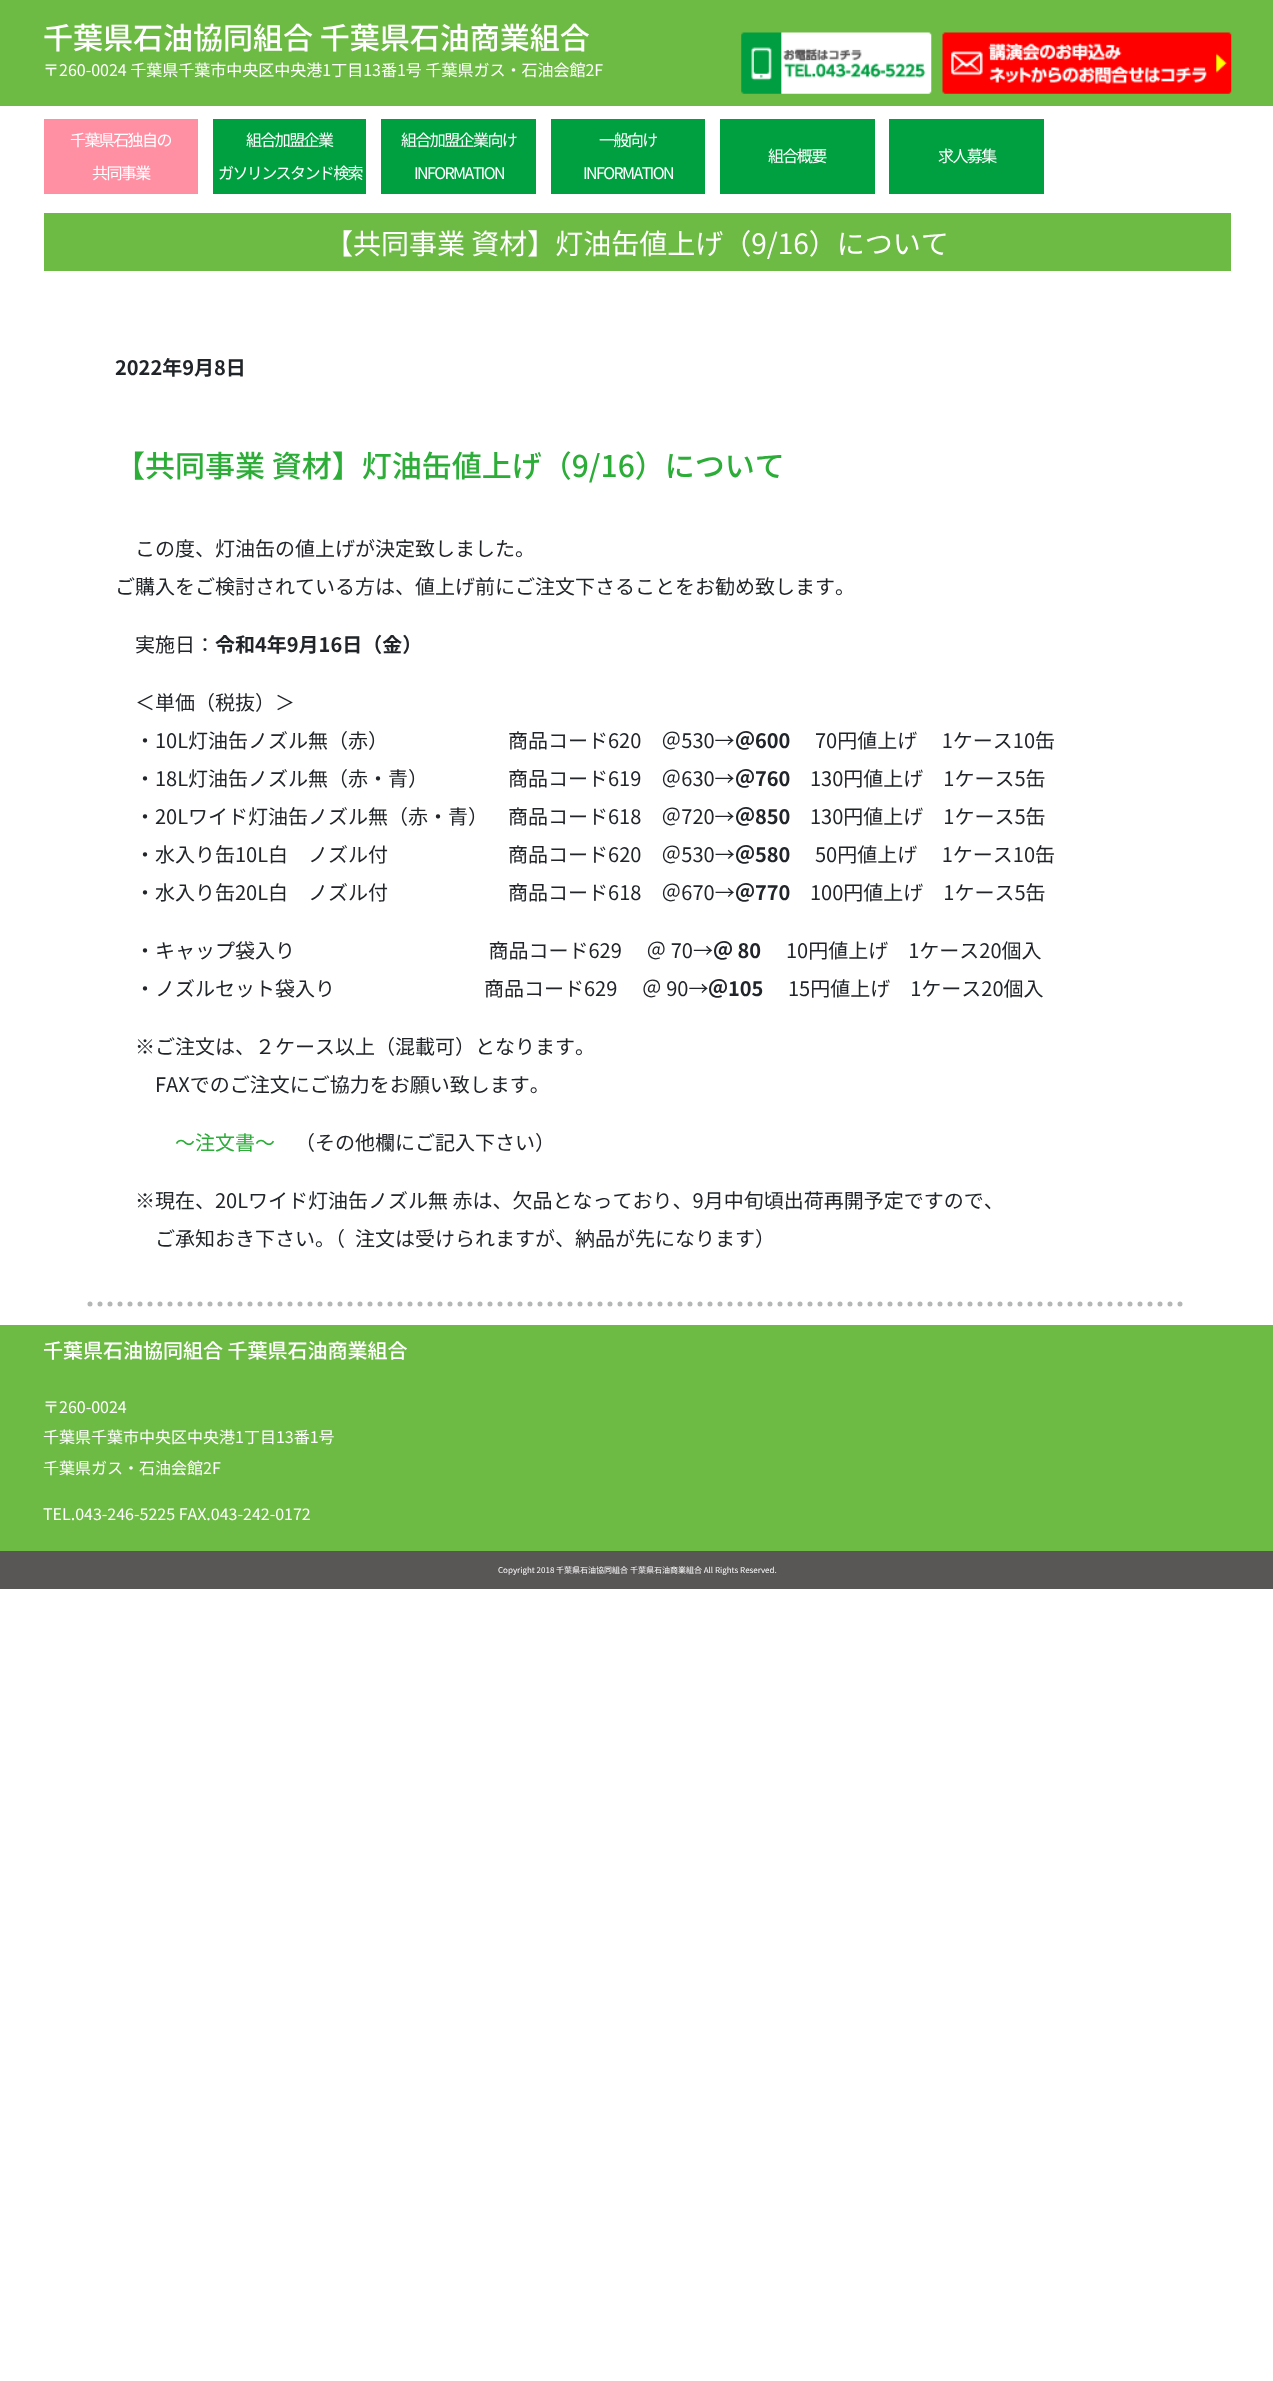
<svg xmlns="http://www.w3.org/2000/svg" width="1273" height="2381">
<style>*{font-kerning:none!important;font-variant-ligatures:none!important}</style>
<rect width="100%" height="100%" fill="#fff"/>
<rect width="1273" height="106" fill="#6dba44"/>
<text x="43" y="49" style="font-family:Noto Sans JP;font-size:30px;font-weight:500;fill:#fff">千葉県石油協同組合 千葉県石油商業組合</text>
<text x="43" y="76" style="font-family:Noto Sans JP;font-size:16px;fill:#fff">〒260-0024 千葉県千葉市中央区中央港1丁目13番1号 千葉県ガス・石油会館2F</text>
<image x="741" y="32" width="191" height="62" href="media/1.png"/>
<image x="942" y="32" width="290" height="62" href="media/2.png"/>
<rect x="44" y="119" width="154" height="75" fill="#ff90a4"/>
<text x="70" y="146" style="font-family:Noto Sans JP;font-size:16px;letter-spacing:-1.6px;fill:#fff">千葉県石独自の</text>
<text x="92" y="179" style="font-family:Noto Sans JP;font-size:16px;letter-spacing:-1.6px;fill:#fff">共同事業</text>
<rect x="213" y="119" width="153" height="75" fill="#00a040"/>
<text x="246" y="146" style="font-family:Noto Sans JP;font-size:16px;letter-spacing:-1.6px;fill:#fff">組合加盟企業</text>
<text x="218" y="179" style="font-family:Noto Sans JP;font-size:16px;letter-spacing:-1.6px;fill:#fff">ガソリンスタンド検索</text>
<rect x="381" y="119" width="155" height="75" fill="#00a040"/>
<text x="401" y="146" style="font-family:Noto Sans JP;font-size:16px;letter-spacing:-1.6px;fill:#fff">組合加盟企業向け</text>
<text x="414" y="179" style="font-family:Noto Sans JP;font-size:16px;letter-spacing:-1.6px;fill:#fff">INFORMATION</text>
<rect x="551" y="119" width="154" height="75" fill="#00a040"/>
<text x="599" y="146" style="font-family:Noto Sans JP;font-size:16px;letter-spacing:-1.6px;fill:#fff">一般向け</text>
<text x="583" y="179" style="font-family:Noto Sans JP;font-size:16px;letter-spacing:-1.6px;fill:#fff">INFORMATION</text>
<rect x="720" y="119" width="155" height="75" fill="#00a040"/>
<text x="768" y="162" style="font-family:Noto Sans JP;font-size:16px;letter-spacing:-1.6px;fill:#fff">組合概要</text>
<rect x="889" y="119" width="155" height="75" fill="#00a040"/>
<text x="938" y="162" style="font-family:Noto Sans JP;font-size:16px;letter-spacing:-1.6px;fill:#fff">求人募集</text>
<rect x="44" y="213" width="1187" height="58" fill="#6dba44"/>
<text x="325" y="254" style="font-family:Noto Sans JP;font-size:28px;fill:#fff">【共同事業 資材】灯油缶値上げ（9/16）について</text>
<path d="M90 1304h1094" fill="none" stroke="#b5b6b6" stroke-width="5" stroke-linecap="round" stroke-dasharray="0 10"/>
<text x="115" y="375" style="font-family:Noto Sans JP;font-size:20px;font-weight:bold;fill:#212529">2022年9月8日</text>
<text x="115" y="477" style="font-family:Noto Sans JP;font-size:30px;font-weight:500;fill:#2bad37">【共同事業 資材】灯油缶値上げ（9/16）について</text>
<text x="135" y="556" style="font-family:Noto Sans JP;font-size:20px;fill:#212529">この度、灯油缶の値上げが決定致しました。</text>
<text x="115" y="594" style="font-family:Noto Sans JP;font-size:20px;fill:#212529">ご購入をご検討されている方は、値上げ前にご注文下さることをお勧め致します。</text>
<text x="135" y="652" style="font-family:Noto Sans JP;font-size:20px;fill:#212529">実施日：</text>
<text x="215" y="652" style="font-family:Noto Sans JP;font-size:20px;font-weight:bold;fill:#212529">令和4年9月16日（金）</text>
<text x="135" y="710" style="font-family:Noto Sans JP;font-size:20px;fill:#212529">＜単価（税抜）＞</text>
<text x="135" y="748" style="font-family:Noto Sans JP;font-size:20px;fill:#212529">・10L灯油缶ノズル無（赤）</text>
<text x="388" y="748" style="font-family:Noto Sans JP;font-size:20px;fill:#212529">　　　　　　商品コード620　＠530→</text>
<text x="735" y="748" style="font-family:Noto Sans JP;font-size:20px;font-weight:bold;fill:#212529">＠600</text>
<text x="815" y="748" style="font-family:Noto Sans JP;font-size:20px;fill:#212529">70円値上げ　 1ケース10缶</text>
<text x="135" y="786" style="font-family:Noto Sans JP;font-size:20px;fill:#212529">・18L灯油缶ノズル無（赤・青）</text>
<text x="428" y="786" style="font-family:Noto Sans JP;font-size:20px;fill:#212529">　　　　商品コード619　＠630→</text>
<text x="735" y="786" style="font-family:Noto Sans JP;font-size:20px;font-weight:bold;fill:#212529">＠760</text>
<text x="810" y="786" style="font-family:Noto Sans JP;font-size:20px;fill:#212529">130円値上げ　1ケース5缶</text>
<text x="135" y="824" style="font-family:Noto Sans JP;font-size:20px;fill:#212529">・20Lワイド灯油缶ノズル無（赤・青）</text>
<text x="488" y="824" style="font-family:Noto Sans JP;font-size:20px;fill:#212529">　商品コード618　＠720→</text>
<text x="735" y="824" style="font-family:Noto Sans JP;font-size:20px;font-weight:bold;fill:#212529">＠850</text>
<text x="810" y="824" style="font-family:Noto Sans JP;font-size:20px;fill:#212529">130円値上げ　1ケース5缶</text>
<text x="135" y="862" style="font-family:Noto Sans JP;font-size:20px;fill:#212529">・水入り缶10L白　ノズル付　　　　　　商品コード620　＠530→</text>
<text x="735" y="862" style="font-family:Noto Sans JP;font-size:20px;font-weight:bold;fill:#212529">＠580</text>
<text x="815" y="862" style="font-family:Noto Sans JP;font-size:20px;fill:#212529">50円値上げ　 1ケース10缶</text>
<text x="135" y="900" style="font-family:Noto Sans JP;font-size:20px;fill:#212529">・水入り缶20L白　ノズル付　　　　　　商品コード618　＠670→</text>
<text x="735" y="900" style="font-family:Noto Sans JP;font-size:20px;font-weight:bold;fill:#212529">＠770</text>
<text x="810" y="900" style="font-family:Noto Sans JP;font-size:20px;fill:#212529">100円値上げ　1ケース5缶</text>
<text x="135" y="958" style="font-family:Noto Sans JP;font-size:20px;fill:#212529">・キャップ袋入り　　 　 　　　　　　 商品コード629　 ＠ 70→</text>
<text x="713" y="958" style="font-family:Noto Sans JP;font-size:20px;font-weight:bold;fill:#212529">＠ 80</text>
<text x="786" y="958" style="font-family:Noto Sans JP;font-size:20px;fill:#212529">10円値上げ　1ケース20個入</text>
<text x="135" y="996" style="font-family:Noto Sans JP;font-size:20px;fill:#212529">・ノズルセット袋入り</text>
<text x="484" y="996" style="font-family:Noto Sans JP;font-size:20px;fill:#212529">商品コード629　 ＠ 90→</text>
<text x="708" y="996" style="font-family:Noto Sans JP;font-size:20px;font-weight:bold;fill:#212529">＠105</text>
<text x="788" y="996" style="font-family:Noto Sans JP;font-size:20px;fill:#212529">15円値上げ　1ケース20個入</text>
<text x="135" y="1054" style="font-family:Noto Sans JP;font-size:20px;fill:#212529">※ご注文は、２ケース以上（混載可）となります。</text>
<text x="155" y="1092" style="font-family:Noto Sans JP;font-size:20px;fill:#212529">FAXでのご注文にご協力をお願い致します。</text>
<text x="175" y="1150" style="font-family:Noto Sans JP;font-size:20px;fill:#2bad37">～注文書～</text>
<text x="295" y="1150" style="font-family:Noto Sans JP;font-size:20px;fill:#212529">（その他欄にご記入下さい）</text>
<text x="135" y="1208" style="font-family:Noto Sans JP;font-size:20px;fill:#212529">※現在、20Lワイド灯油缶ノズル無 赤は、欠品となっており、9月中旬頃出荷再開予定ですので、</text>
<text x="155" y="1246" style="font-family:Noto Sans JP;font-size:20px;fill:#212529">ご承知おき下さい。（</text>
<text x="355" y="1246" style="font-family:Noto Sans JP;font-size:20px;fill:#212529">注文は受けられますが、納品が先になります）</text>
<rect y="1325" width="1273" height="226" fill="#6dba44"/>
<text x="43" y="1358" style="font-family:Noto Sans JP;font-size:20px;font-weight:500;fill:#fff">千葉県石油協同組合 千葉県石油商業組合</text>
<text x="43" y="1413" style="font-family:Noto Sans JP;font-size:16px;fill:#fff">〒260-0024</text>
<text x="43" y="1443" style="font-family:Noto Sans JP;font-size:16px;fill:#fff">千葉県千葉市中央区中央港1丁目13番1号</text>
<text x="43" y="1474" style="font-family:Noto Sans JP;font-size:16px;fill:#fff">千葉県ガス・石油会館2F</text>
<text x="43" y="1520" style="font-family:Noto Sans JP;font-size:16px;fill:#fff">TEL.043-246-5225 FAX.043-242-0172</text>
<rect y="1551" width="1273" height="38" fill="#595656"/>
<text x="498" y="1573" style="font-family:Noto Sans JP;font-size:8px;fill:#fff">Copyright 2018 千葉県石油協同組合 千葉県石油商業組合 All Rights Reserved.</text>
</svg>
